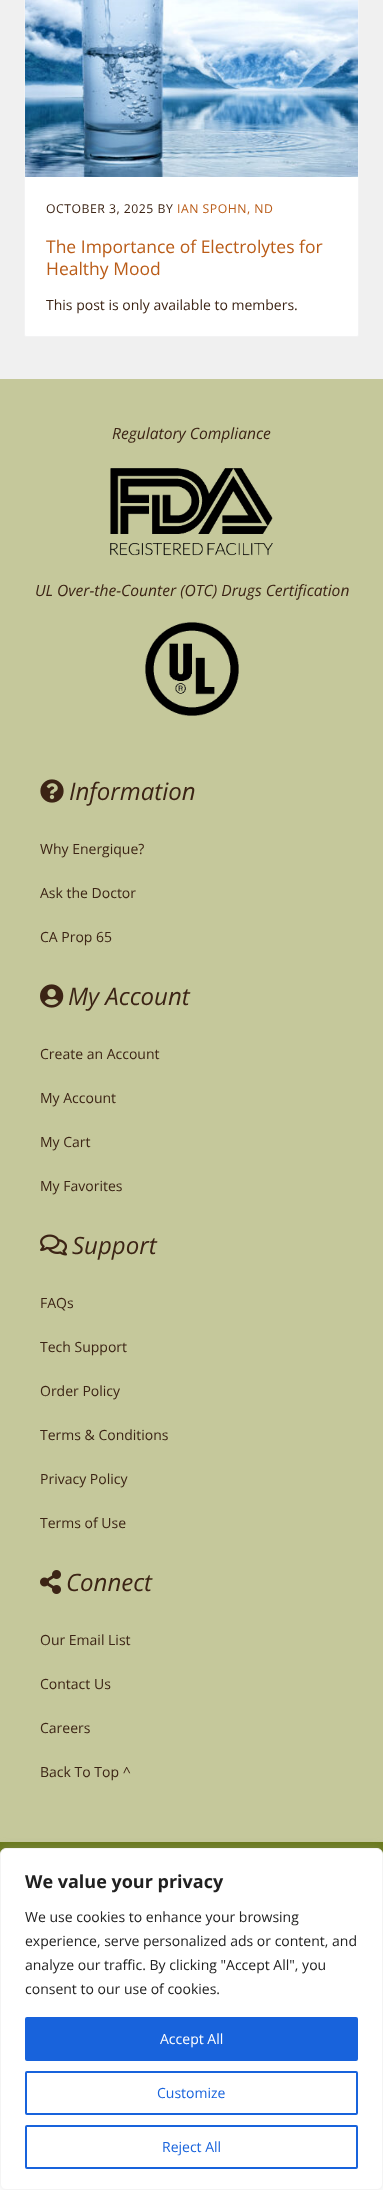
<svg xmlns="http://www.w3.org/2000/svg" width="383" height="2190">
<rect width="100%" height="100%" fill="#fff"/>
<rect width="383" height="379" fill="#f0f0f0"/>
<rect x="24.5" y="-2.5" width="334" height="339" rx="1.5" fill="#fff" stroke="#f3f3f4"/>
<image x="25" y="0" width="333" height="177" href="media/1.png"/>
<text x="46" y="213" style="font-family:Open Sans;font-size:12.25px;letter-spacing:0.5px;fill:#3c2415">OCTOBER 3, 2025 BY</text>
<text x="177" y="213" style="font-family:Open Sans;font-size:12.25px;letter-spacing:0.5px;fill:#ba5c18">IAN SPOHN, ND</text>
<text x="46" y="253" style="font-family:Open Sans;font-size:17.5px;fill:#ba5c18">The Importance of Electrolytes for</text>
<text x="46" y="275" style="font-family:Open Sans;font-size:17.5px;fill:#ba5c18">Healthy Mood</text>
<text x="46" y="310" style="font-family:Open Sans;font-size:14px;fill:#3c2415">This post is only available to members.</text>
<rect y="379" width="383" height="1463" fill="#c5c89b"/>
<text x="112" y="439" style="font-family:Open Sans;font-size:15.6px;font-style:italic;fill:#3c2415">Regulatory Compliance</text>
<image x="110" y="468" width="163" height="88" href="media/2.png"/>
<text x="35" y="596" style="font-family:Open Sans;font-size:15.6px;font-style:italic;fill:#3c2415">UL Over-the-Counter (OTC) Drugs Certification</text>
<image x="145" y="622" width="94" height="94" href="media/3.png"/>
<image x="40" y="779" width="24" height="24" href="media/4.png"/>
<text x="69" y="800" style="font-family:Open Sans;font-size:24px;font-style:italic;fill:#3c2415">Information</text>
<text x="40" y="854" style="font-family:Open Sans;font-size:14px;fill:#3c2415">Why Energique?</text>
<text x="40" y="898" style="font-family:Open Sans;font-size:14px;fill:#3c2415">Ask the Doctor</text>
<text x="40" y="942" style="font-family:Open Sans;font-size:14px;fill:#3c2415">CA Prop 65</text>
<image x="40" y="984" width="24" height="24" href="media/5.png"/>
<text x="68" y="1005" style="font-family:Open Sans;font-size:24px;font-style:italic;fill:#3c2415">My Account</text>
<text x="40" y="1059" style="font-family:Open Sans;font-size:14px;fill:#3c2415">Create an Account</text>
<text x="40" y="1103" style="font-family:Open Sans;font-size:14px;fill:#3c2415">My Account</text>
<text x="40" y="1147" style="font-family:Open Sans;font-size:14px;fill:#3c2415">My Cart</text>
<text x="40" y="1191" style="font-family:Open Sans;font-size:14px;fill:#3c2415">My Favorites</text>
<image x="40" y="1234" width="27" height="22" href="media/6.png"/>
<text x="72" y="1254" style="font-family:Open Sans;font-size:24px;font-style:italic;fill:#3c2415">Support</text>
<text x="40" y="1308" style="font-family:Open Sans;font-size:14px;fill:#3c2415">FAQs</text>
<text x="40" y="1352" style="font-family:Open Sans;font-size:14px;fill:#3c2415">Tech Support</text>
<text x="40" y="1396" style="font-family:Open Sans;font-size:14px;fill:#3c2415">Order Policy</text>
<text x="40" y="1440" style="font-family:Open Sans;font-size:14px;fill:#3c2415">Terms &amp; Conditions</text>
<text x="40" y="1484" style="font-family:Open Sans;font-size:14px;fill:#3c2415">Privacy Policy</text>
<text x="40" y="1528" style="font-family:Open Sans;font-size:14px;fill:#3c2415">Terms of Use</text>
<image x="40" y="1570" width="21" height="24" href="media/7.png"/>
<text x="66" y="1591" style="font-family:Open Sans;font-size:24px;font-style:italic;fill:#3c2415">Connect</text>
<text x="40" y="1645" style="font-family:Open Sans;font-size:14px;fill:#3c2415">Our Email List</text>
<text x="40" y="1689" style="font-family:Open Sans;font-size:14px;fill:#3c2415">Contact Us</text>
<text x="40" y="1733" style="font-family:Open Sans;font-size:14px;fill:#3c2415">Careers</text>
<text x="40" y="1777" style="font-family:Open Sans;font-size:14px;fill:#3c2415">Back To Top ^</text>
<rect y="1842" width="383" height="12" fill="#687819"/>
<rect y="1847" width="383" height="342" rx="6" fill="#acabab4d" filter="blur(5px)"/>
<rect x="0.5" y="1848.5" width="382" height="341" rx="5.5" fill="#fff" stroke="#f4f4f4"/>
<text x="25" y="1888" style="font-family:Open Sans;font-size:18px;font-weight:bold;fill:#212121">We value your privacy</text>
<text x="25" y="1922" style="font-family:Open Sans;font-size:14px;fill:#212121">We use cookies to enhance your browsing</text>
<text x="25" y="1946" style="font-family:Open Sans;font-size:14px;fill:#212121">experience, serve personalized ads or content, and</text>
<text x="25" y="1970" style="font-family:Open Sans;font-size:14px;fill:#212121">analyze our traffic. By clicking "Accept All", you</text>
<text x="25" y="1994" style="font-family:Open Sans;font-size:14px;fill:#212121">consent to our use of cookies.</text>
<rect x="26" y="2018" width="331" height="42" rx="1" fill="#1863dc" stroke="#1863dc" stroke-width="2"/>
<text x="160" y="2044" style="font-family:Open Sans;font-size:14px;fill:#fff">Accept All</text>
<rect x="26" y="2072" width="331" height="42" rx="1" fill="none" stroke="#1863dc" stroke-width="2"/>
<text x="157" y="2098" style="font-family:Open Sans;font-size:14px;fill:#1863dc">Customize</text>
<rect x="26" y="2126" width="331" height="42" rx="1" fill="none" stroke="#1863dc" stroke-width="2"/>
<text x="162" y="2152" style="font-family:Open Sans;font-size:14px;fill:#1863dc">Reject All</text>
</svg>
